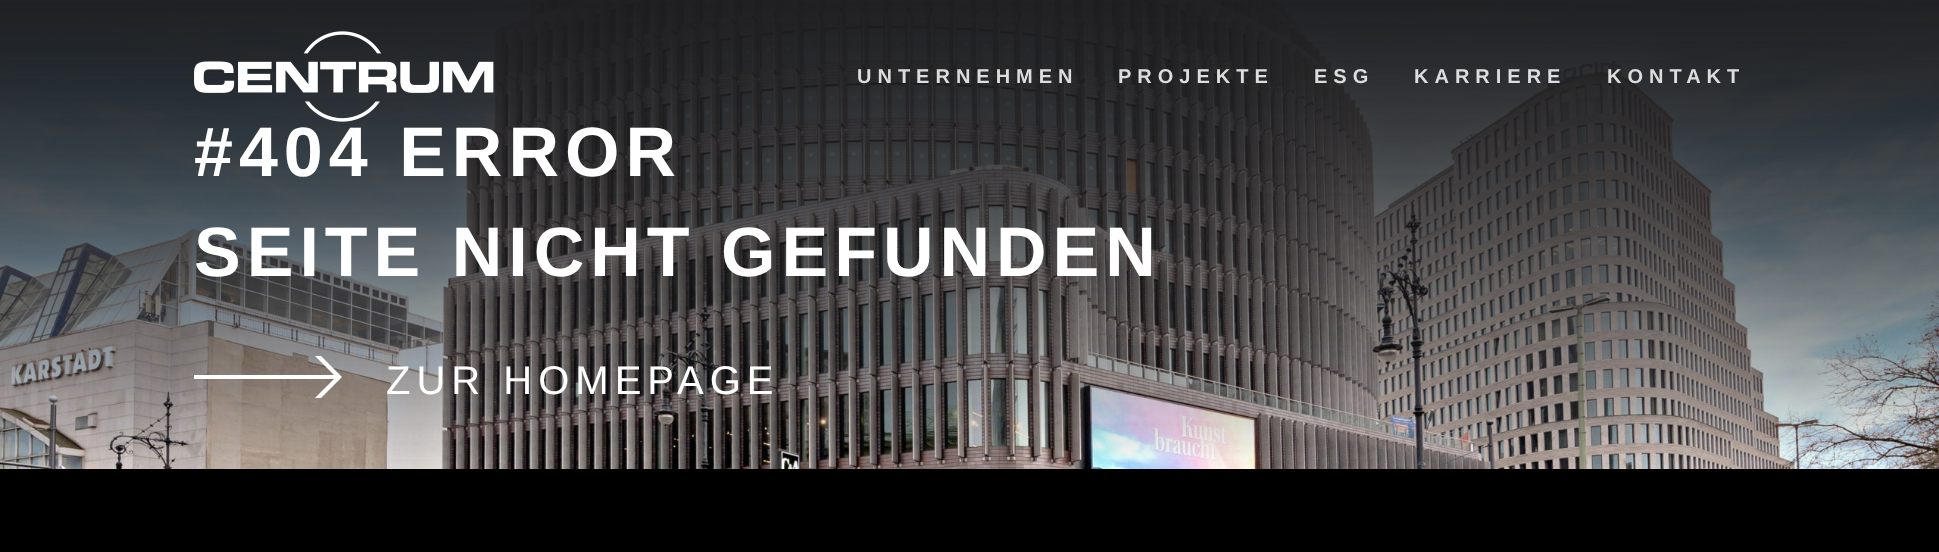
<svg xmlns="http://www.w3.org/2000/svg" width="1939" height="552">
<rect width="100%" height="100%" fill="#fff"/>
<image x="0" y="0" width="1939" height="469" href="media/2.png"/>
<image x="194" y="31" width="300" height="91" href="media/1.png"/>
<text x="857" y="83" style="font-family:Liberation Sans;font-size:20px;font-weight:bold;letter-spacing:6px;fill:#ddd">UNTERNEHMEN</text>
<text x="1118" y="83" style="font-family:Liberation Sans;font-size:20px;font-weight:bold;letter-spacing:6px;fill:#ddd">PROJEKTE</text>
<text x="1314" y="83" style="font-family:Liberation Sans;font-size:20px;font-weight:bold;letter-spacing:6px;fill:#ddd">ESG</text>
<text x="1414" y="83" style="font-family:Liberation Sans;font-size:20px;font-weight:bold;letter-spacing:6px;fill:#ddd">KARRIERE</text>
<text x="1607" y="83" style="font-family:Liberation Sans;font-size:20px;font-weight:bold;letter-spacing:6px;fill:#ddd">KONTAKT</text>
<text x="194" y="176" style="font-family:Liberation Sans;font-size:70px;font-weight:bold;letter-spacing:6px;fill:#fff">#404 ERROR</text>
<text x="194" y="276" style="font-family:Liberation Sans;font-size:70px;font-weight:bold;letter-spacing:6px;fill:#fff">SEITE NICHT GEFUNDEN</text>
<path d="M194 375h140l-19-19h6l21 21l-21 21h-6l19-19h-140z" fill="#fff"/>
<text x="386" y="394" style="font-family:Liberation Sans;font-size:40px;letter-spacing:6px;fill:#fff">ZUR HOMEPAGE</text>
<rect y="469" width="1939" height="83" fill="#000"/>
</svg>
